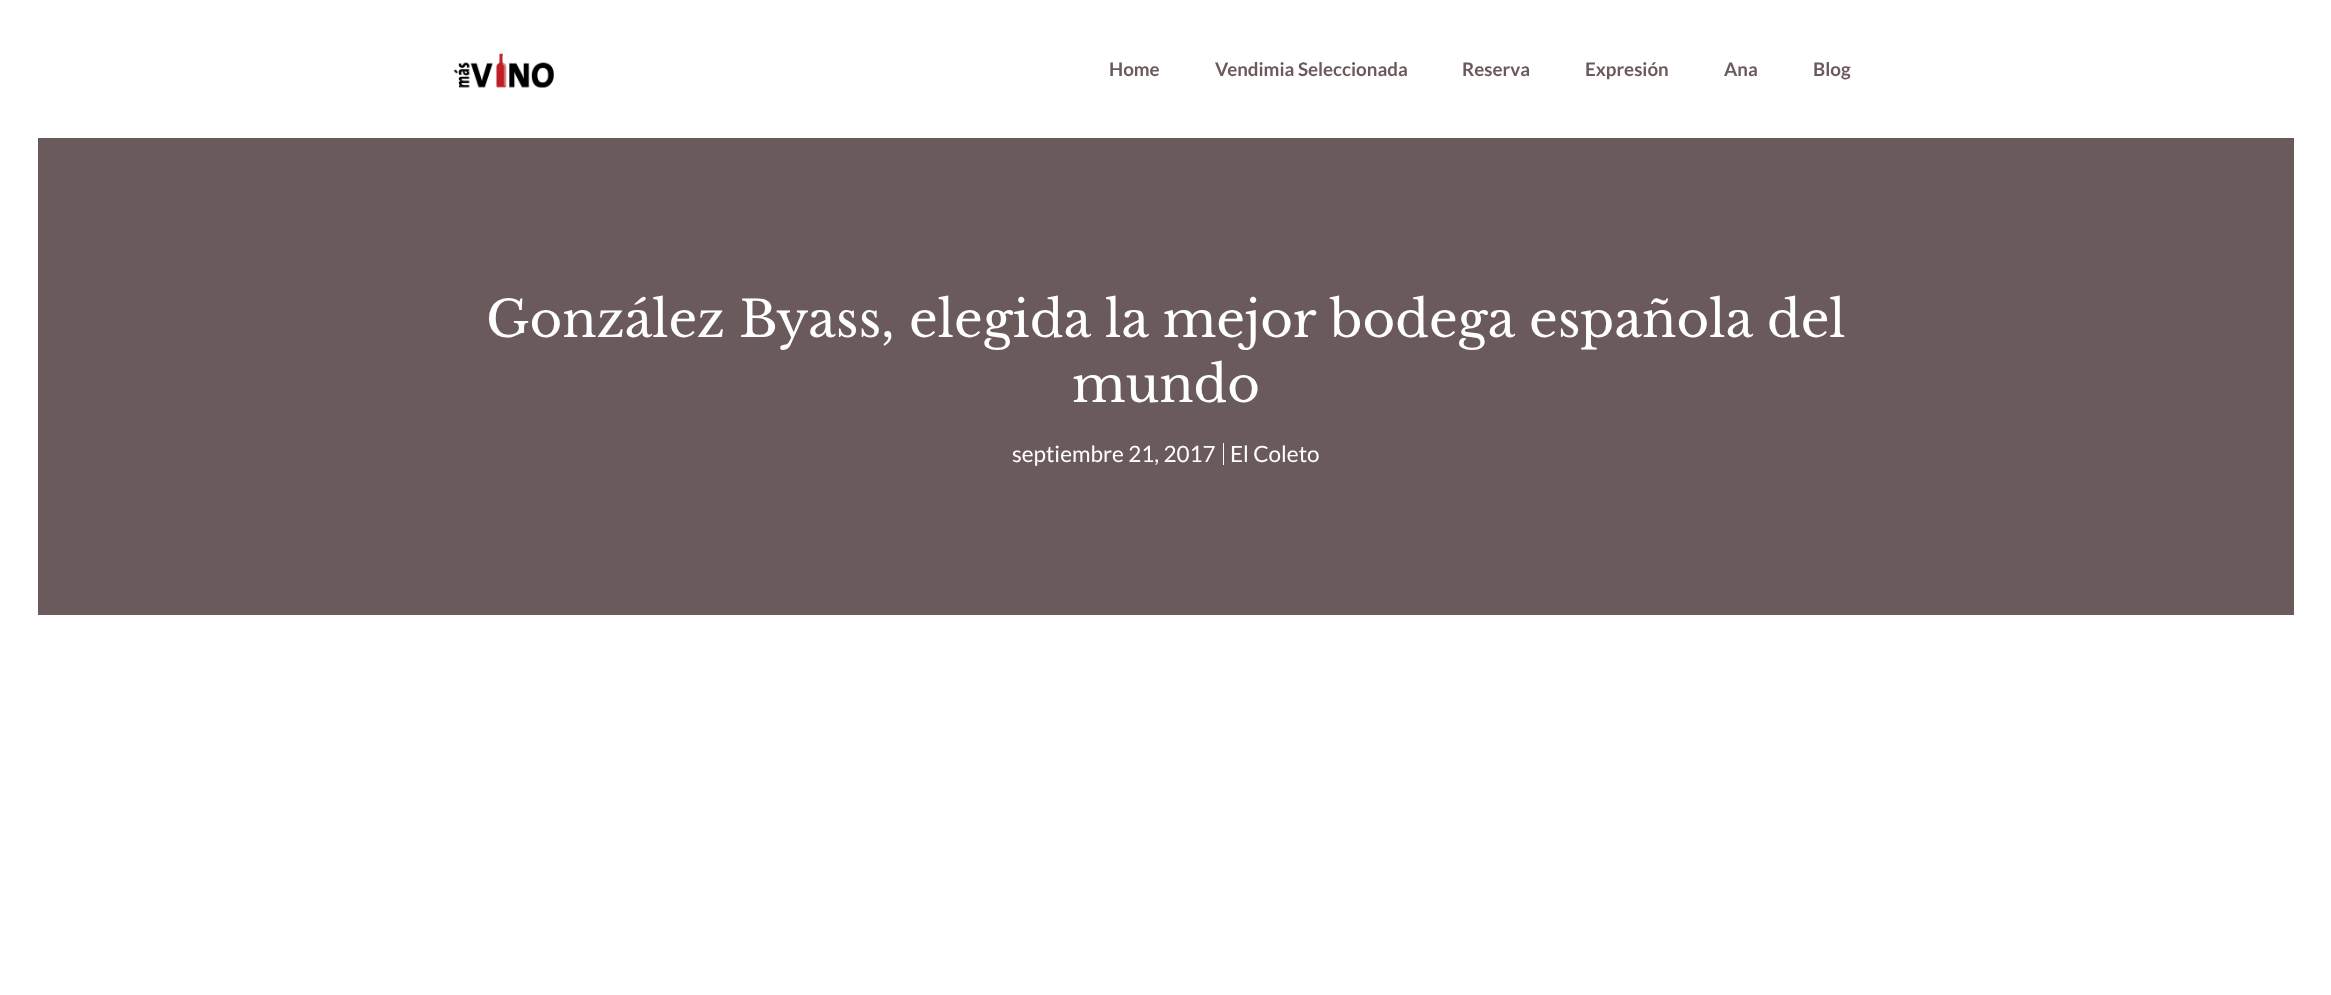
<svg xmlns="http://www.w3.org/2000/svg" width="2331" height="995">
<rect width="100%" height="100%" fill="#fff"/>
<image x="453" y="53" width="101" height="35" href="media/1.png"/>
<text x="1109" y="76" style="font-family:Lato;font-size:18.75px;font-weight:bold;fill:#6b5a5b">Home</text>
<text x="1215" y="76" style="font-family:Lato;font-size:18.75px;font-weight:bold;fill:#6b5a5b">Vendimia Seleccionada</text>
<text x="1462" y="76" style="font-family:Lato;font-size:18.75px;font-weight:bold;fill:#6b5a5b">Reserva</text>
<text x="1585" y="76" style="font-family:Lato;font-size:18.75px;font-weight:bold;fill:#6b5a5b">Expresión</text>
<text x="1724" y="76" style="font-family:Lato;font-size:18.75px;font-weight:bold;fill:#6b5a5b">Ana</text>
<text x="1813" y="76" style="font-family:Lato;font-size:18.75px;font-weight:bold;fill:#6b5a5b">Blog</text>
<rect x="38" y="138" width="2256" height="477" fill="#6b5a5b"/>
<text x="486" y="337" style="font-family:Libre Baskerville;font-size:50px;fill:#fff">González Byass, elegida la mejor bodega española del</text>
<text x="1072" y="402" style="font-family:Libre Baskerville;font-size:50px;fill:#fff">mundo</text>
<text x="1012" y="462" style="font-family:Lato;font-size:22.5px;fill:#fff">septiembre 21, 2017</text>
<rect x="1223" y="443" width="1" height="22" fill="#fff"/>
<text x="1230" y="462" style="font-family:Lato;font-size:22.5px;fill:#fff">El Coleto</text>
</svg>
